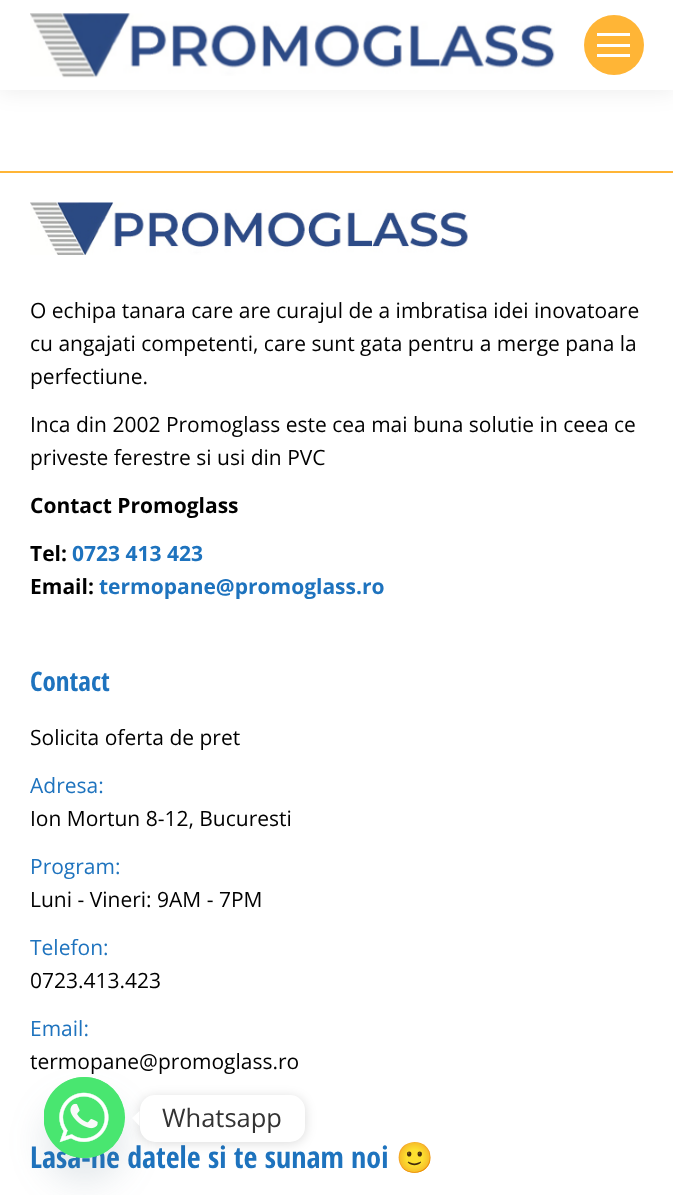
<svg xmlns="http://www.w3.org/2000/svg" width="673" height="1195">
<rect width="100%" height="100%" fill="#fff"/>
<rect x="-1" y="-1" width="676" height="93" fill="#00000012" filter="blur(11px)"/>
<rect width="673" height="90" fill="#fff"/>
<image x="30" y="13" width="525" height="65" href="media/1.png"/>
<circle cx="614" cy="45" r="30" fill="#ffb536"/>
<rect x="597" y="44" width="33" height="3" fill="#fff"/>
<rect x="597" y="33" width="33" height="3" fill="#fff"/>
<rect x="597" y="54" width="33" height="3" fill="#fff"/>
<rect y="171" width="673" height="2" fill="#ffb536"/>
<image x="30" y="202" width="438" height="53" href="media/2.png"/>
<text x="30" y="318" style="font-family:Open Sans;font-size:21px;fill:#000">O echipa tanara care are curajul de a imbratisa idei inovatoare</text>
<text x="30" y="351" style="font-family:Open Sans;font-size:21px;fill:#000">cu angajati competenti, care sunt gata pentru a merge pana la</text>
<text x="30" y="384" style="font-family:Open Sans;font-size:21px;fill:#000">perfectiune.</text>
<text x="30" y="432" style="font-family:Open Sans;font-size:21px;fill:#000">Inca din 2002 Promoglass este cea mai buna solutie in ceea ce</text>
<text x="30" y="465" style="font-family:Open Sans;font-size:21px;fill:#000">priveste ferestre si usi din PVC</text>
<text x="30" y="513" style="font-family:Open Sans;font-size:21px;font-weight:bold;fill:#000">Contact Promoglass</text>
<text x="30" y="561" style="font-family:Open Sans;font-size:21px;font-weight:bold;fill:#000">Tel:</text>
<text x="72" y="561" style="font-family:Open Sans;font-size:21px;font-weight:bold;fill:#1e73be">0723 413 423</text>
<text x="30" y="594" style="font-family:Open Sans;font-size:21px;font-weight:bold;fill:#000">Email:</text>
<text x="99" y="594" style="font-family:Open Sans;font-size:21px;font-weight:bold;fill:#1e73be">termopane@promoglass.ro</text>
<text x="30" y="691" style="font-family:Open Sans Condensed;font-size:27px;font-weight:bold;fill:#1e73be">Contact</text>
<text x="30" y="745" style="font-family:Open Sans;font-size:21px;fill:#000">Solicita oferta de pret</text>
<text x="30" y="793" style="font-family:Open Sans;font-size:21px;fill:#1e73be">Adresa:</text>
<text x="30" y="826" style="font-family:Open Sans;font-size:21px;fill:#000">Ion Mortun 8-12, Bucuresti</text>
<text x="30" y="874" style="font-family:Open Sans;font-size:21px;fill:#1e73be">Program:</text>
<text x="30" y="907" style="font-family:Open Sans;font-size:21px;fill:#000">Luni - Vineri: 9AM - 7PM</text>
<text x="30" y="955" style="font-family:Open Sans;font-size:21px;fill:#1e73be">Telefon:</text>
<text x="30" y="988" style="font-family:Open Sans;font-size:21px;fill:#000">0723.413.423</text>
<text x="30" y="1036" style="font-family:Open Sans;font-size:21px;fill:#1e73be">Email:</text>
<text x="30" y="1069" style="font-family:Open Sans;font-size:21px;fill:#000">termopane@promoglass.ro</text>
<text x="30" y="1168" style="font-family:Open Sans Condensed;font-size:30px;font-weight:bold;fill:#1e73be">Lasa-ne datele si te sunam noi</text>
<text x="396" y="1168" style="font-family:Noto Color Emoji;font-size:30px;font-weight:bold;fill:#1e73be">🙂</text>
<rect x="44" y="1101" width="81" height="81" rx="40.5" fill="#49687e29" filter="blur(18px)"/>
<circle cx="84.5" cy="1117.5" r="40.5" fill="#49e670"/>
<image x="44" y="1077" width="81" height="81" href="media/3.png"/>
<rect x="140" y="1097" width="165" height="46" rx="15" fill="#00000026" filter="blur(6px)"/>
<rect x="140" y="1095" width="165" height="47" rx="15" fill="#fff"/>
<path d="M139.5 1111v15l-7.5-8z" fill="#fff"/>
<text x="162" y="1127" style="font-family:Open Sans;font-size:25.5px;fill:#333">Whatsapp</text>
</svg>
